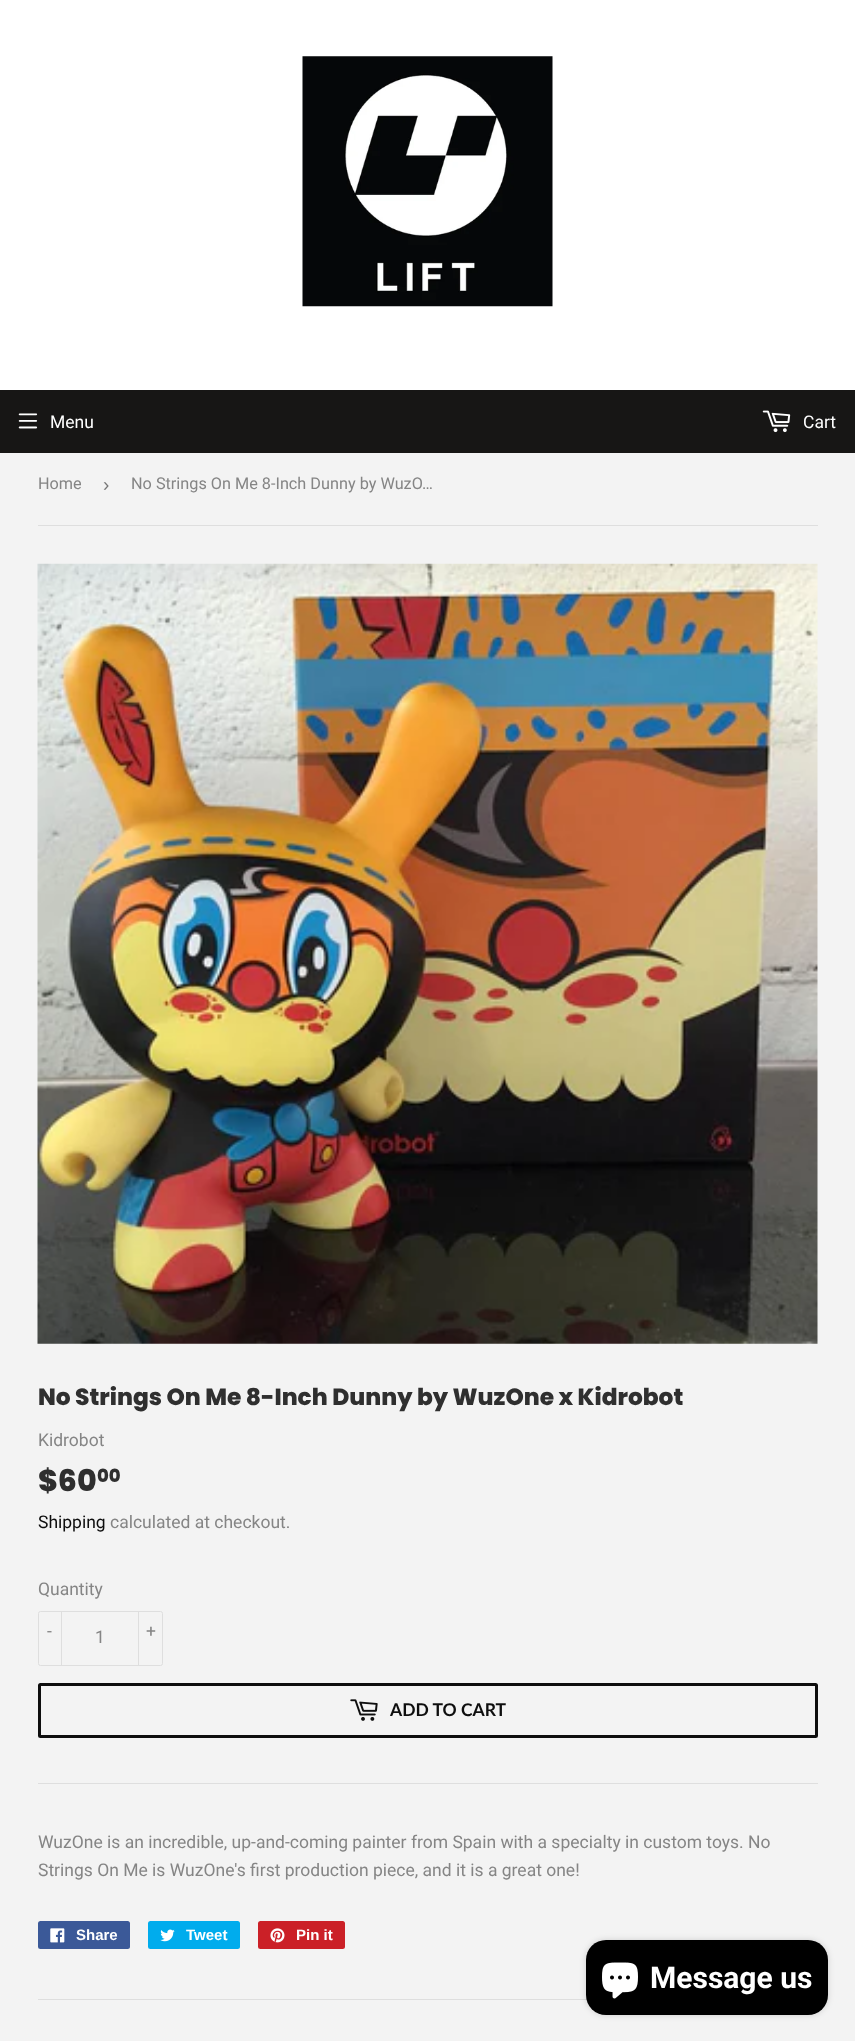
<svg xmlns="http://www.w3.org/2000/svg" width="855" height="2041">
<rect width="100%" height="100%" fill="#f3f3f3"/>
<rect width="855" height="390" fill="#fff"/>
<image x="302" y="56" width="251" height="251" href="media/1.png"/>
<rect y="390" width="855" height="63" fill="#171615"/>
<image x="18" y="413" width="20" height="16" href="media/2.png"/>
<text x="50" y="428" style="font-family:Roboto;font-size:17.5px;fill:#fff">Menu</text>
<image x="762" y="410" width="29" height="23" href="media/3.png"/>
<text x="803" y="428" style="font-family:Roboto;font-size:17.5px;fill:#fff">Cart</text>
<rect x="38" y="525" width="780" height="1" fill="#dedede"/>
<text x="38" y="489" style="font-family:Roboto;font-size:16.25px;fill:#858585">Home</text>
<text x="103" y="491" style="font-family:Liberation Sans;font-size:19px;fill:#767676">›</text>
<text x="131" y="489" style="font-family:Roboto;font-size:16.25px;fill:#858585">No Strings On Me 8-Inch Dunny by WuzO…</text>
<image x="37" y="563" width="781" height="781" href="media/4.png"/>
<text x="38" y="1405" style="font-family:Poppins;font-size:23.3px;font-weight:800;fill:#2f2f2f">No Strings On Me 8-Inch Dunny by WuzOne x Kidrobot</text>
<text x="38" y="1446" style="font-family:Roboto;font-size:17.5px;fill:#858585">Kidrobot</text>
<text x="38" y="1491" style="font-family:Poppins;font-size:30px;font-weight:800;fill:#2f2f2f">$60</text>
<text x="97" y="1482" style="font-family:Poppins;font-size:18px;font-weight:800;fill:#2f2f2f">00</text>
<text x="38" y="1528" style="font-family:Roboto;font-size:17.5px;fill:#0e0e0e">Shipping</text>
<text x="110" y="1528" style="font-family:Roboto;font-size:17.5px;fill:#858585">calculated at checkout.</text>
<text x="38" y="1595" style="font-family:Roboto;font-size:17.5px;fill:#858585">Quantity</text>
<rect x="38.5" y="1611.5" width="124" height="54" rx="2" fill="none" stroke="#dedede"/>
<rect x="61" y="1611" width="1" height="55" fill="#dedede"/>
<text x="47" y="1637" style="font-family:Roboto;font-size:17.5px;fill:#858585">-</text>
<text x="95" y="1643" style="font-family:Roboto;font-size:17.5px;fill:#858585">1</text>
<rect x="138" y="1611" width="1" height="55" fill="#dedede"/>
<text x="146" y="1637" style="font-family:Roboto;font-size:17.5px;fill:#858585">+</text>
<rect x="39.5" y="1684.5" width="777" height="52" rx="1" fill="none" stroke="#0e0e0e" stroke-width="3"/>
<image x="350" y="1699" width="28" height="22" href="media/5.png"/>
<text x="390" y="1716" style="font-family:Lato;font-size:17.5px;font-weight:bold;fill:#0e0e0e">ADD TO CART</text>
<rect x="38" y="1783" width="780" height="1" fill="#dedede"/>
<text x="38" y="1848" style="font-family:Roboto;font-size:17.5px;fill:#858585">WuzOne is an incredible, up-and-coming painter from Spain with a specialty in custom toys. No</text>
<text x="38" y="1876" style="font-family:Roboto;font-size:17.5px;fill:#858585">Strings On Me is WuzOne's first production piece, and it is a great one!</text>
<rect x="38" y="1921" width="92" height="28" rx="2.5" fill="#3b5998"/>
<image x="50" y="1928" width="15" height="15" href="media/6.png"/>
<text x="76" y="1940" style="font-family:Liberation Sans;font-size:15px;font-weight:bold;fill:#fff">Share</text>
<rect x="148" y="1921" width="92" height="28" rx="2.5" fill="#00aced"/>
<image x="160" y="1929" width="15" height="13" href="media/7.png"/>
<text x="186" y="1940" style="font-family:Liberation Sans;font-size:15px;font-weight:bold;fill:#fff">Tweet</text>
<rect x="258" y="1921" width="87" height="28" rx="2.5" fill="#cb2027"/>
<image x="270" y="1928" width="15" height="15" href="media/8.png"/>
<text x="296" y="1940" style="font-family:Liberation Sans;font-size:15px;font-weight:bold;fill:#fff">Pin it</text>
<rect x="38" y="1999" width="549" height="1" fill="#dedede"/>
<rect x="586" y="1940" width="242" height="75" rx="20" fill="#00000026" filter="blur(3px)"/>
<rect x="586" y="1940" width="242" height="75" rx="20" fill="#000"/>
<image x="602" y="1962" width="36" height="37" href="media/9.png"/>
<text x="650" y="1988" style="font-family:Roboto;font-size:30px;font-weight:bold;fill:#fff">Message us</text>
</svg>
